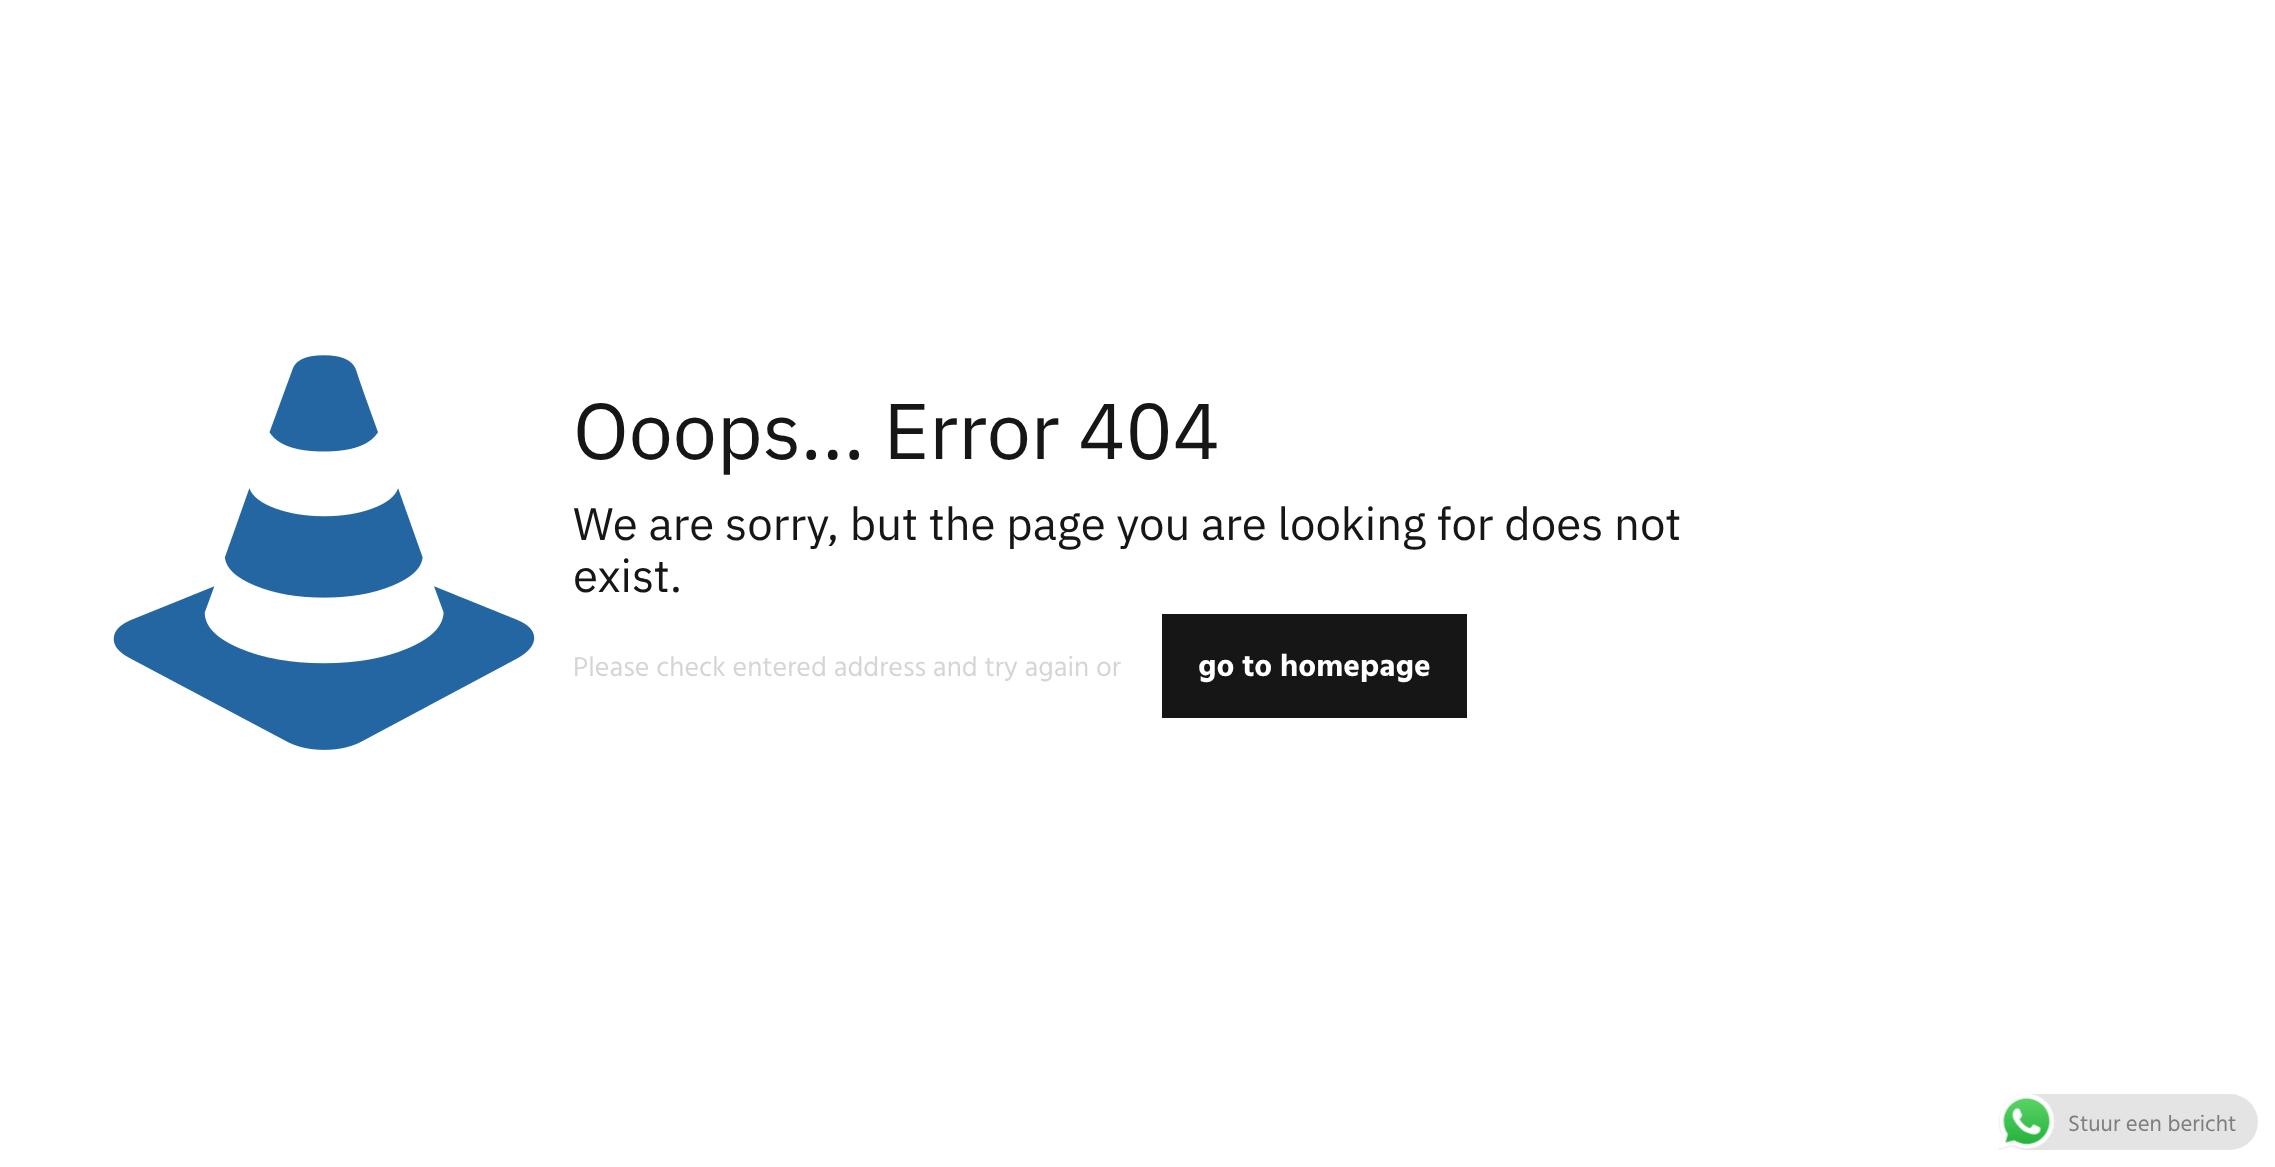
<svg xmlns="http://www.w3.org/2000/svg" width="2275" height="1167">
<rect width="100%" height="100%" fill="#fff"/>
<image x="113" y="355" width="422" height="395" href="media/1.png"/>
<text x="573" y="459" style="font-family:IBM Plex Sans;font-size:78.75px;fill:#161616">Ooops... Error 404</text>
<text x="573" y="540" style="font-family:IBM Plex Sans;font-size:45.5px;fill:#161616">We are sorry, but the page you are looking for does not</text>
<text x="573" y="592" style="font-family:IBM Plex Sans;font-size:45.5px;fill:#161616">exist.</text>
<text x="573" y="676" style="font-family:Hind Vadodara;font-size:28px;fill:#d4d5d7">Please check entered address and try again or</text>
<rect x="1162" y="614" width="305" height="104" fill="#161616"/>
<text x="1198" y="676" style="font-family:Hind Vadodara;font-size:31.5px;font-weight:bold;fill:#fff">go to homepage</text>
<rect x="1999" y="1094" width="259" height="56" rx="28" fill="#e4e4e4"/>
<image x="1998" y="1094" width="57" height="56" href="media/2.png"/>
<text x="2068" y="1131" style="font-family:Hind Vadodara;font-size:22.75px;fill:#7f7d7d">Stuur een bericht</text>
</svg>
